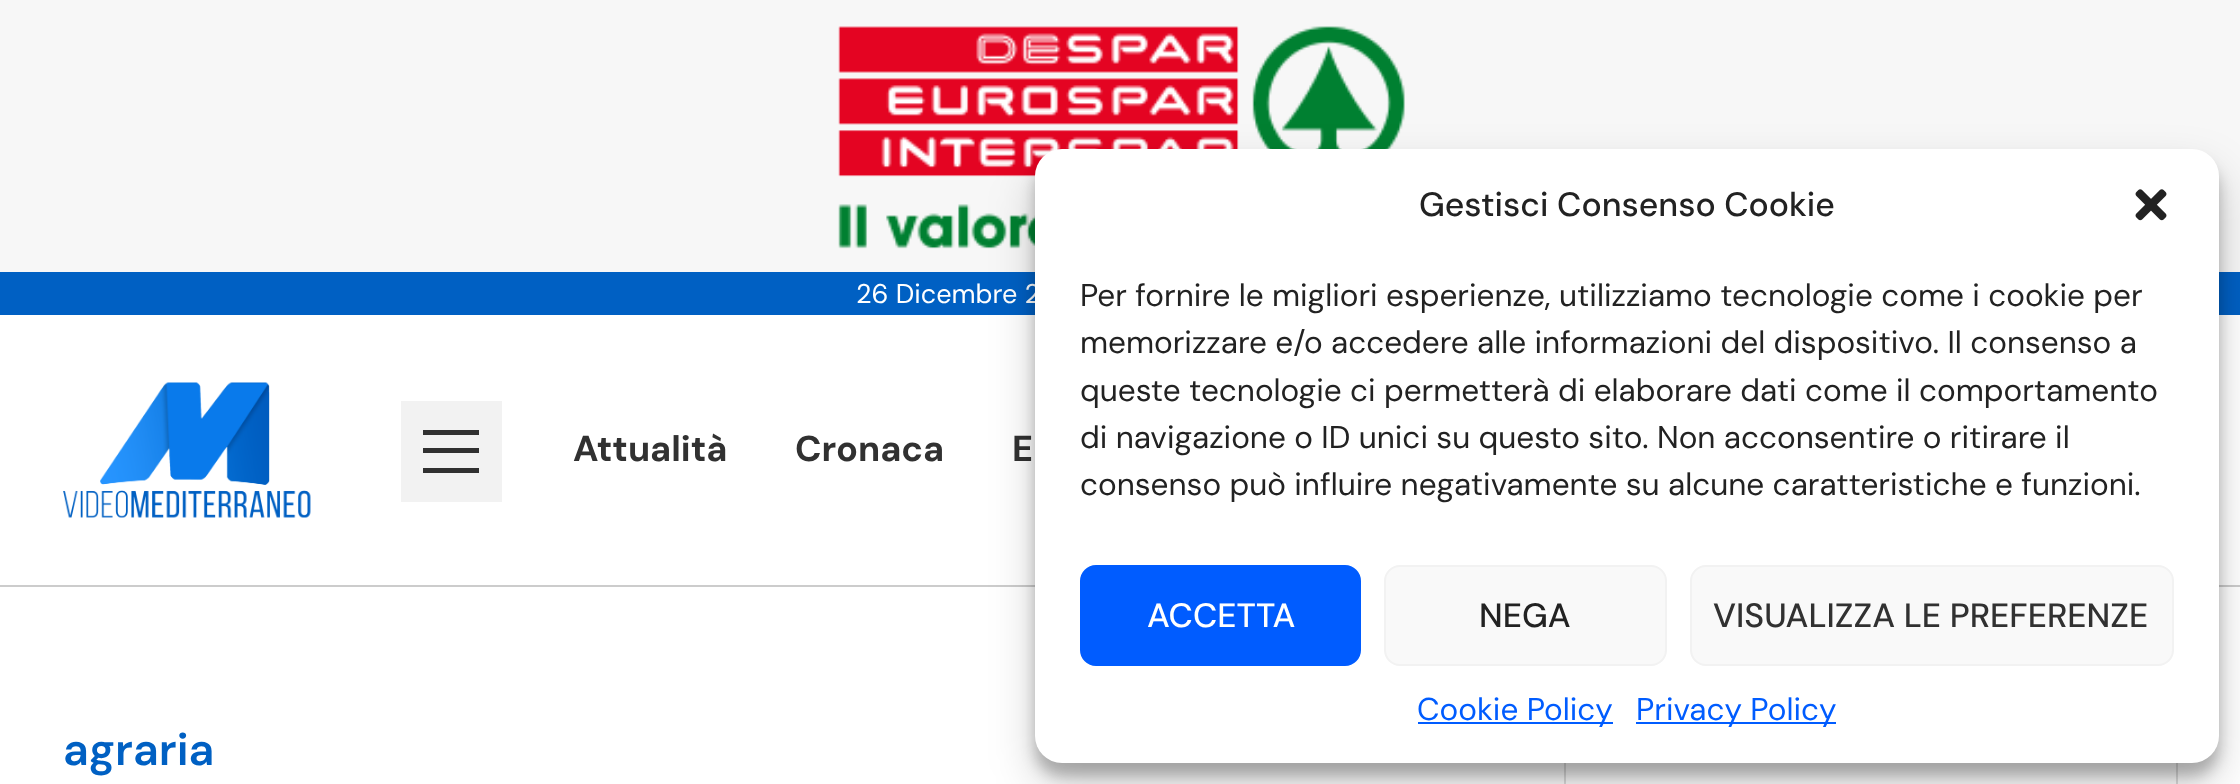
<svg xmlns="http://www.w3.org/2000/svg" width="2240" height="784">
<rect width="100%" height="100%" fill="#fff"/>
<rect width="2240" height="272" fill="#f7f7f7"/>
<image x="838" y="26" width="567" height="223" href="media/1.png"/>
<rect y="272" width="2240" height="43" fill="#0060c3"/>
<text x="856" y="303" style="font-family:DM Sans;font-size:27px;fill:#fff">26 Dicembre 2</text>
<rect y="585" width="2240" height="2" fill="#ccc"/>
<image x="63" y="382" width="248" height="136" href="media/2.png"/>
<rect x="401" y="401" width="101" height="101" fill="#f2f2f2"/>
<rect x="423" y="430" width="56" height="5" fill="#313131"/>
<rect x="423" y="468" width="56" height="5" fill="#313131"/>
<rect x="423" y="448" width="56" height="5" fill="#313131"/>
<text x="573" y="461" style="font-family:DM Sans;font-size:36px;font-weight:bold;fill:#313131">Attualità</text>
<text x="795" y="461" style="font-family:DM Sans;font-size:36px;font-weight:bold;fill:#313131">Cronaca</text>
<text x="1012" y="461" style="font-family:DM Sans;font-size:36px;font-weight:bold;fill:#313131">E</text>
<text x="63" y="765" style="font-family:DM Sans;font-size:45px;font-weight:600;fill:#0060c3">agraria</text>
<rect x="1565" y="723" width="612" height="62" fill="none" stroke="#dedede" stroke-width="2"/>
<rect x="1035" y="162" width="1184" height="614" rx="27" fill="#0000003b" filter="blur(7px)"/>
<rect x="1035" y="171" width="1184" height="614" rx="27" fill="#00000030" filter="blur(22.5px)"/>
<rect x="1035" y="149" width="1184" height="614" rx="27" fill="#fff"/>
<text x="1419" y="216" style="font-family:DM Sans;font-size:33.75px;font-weight:500;fill:#222">Gestisci Consenso Cookie</text>
<image x="2135" y="189" width="32" height="32" href="media/3.png"/>
<text x="1080" y="306" style="font-family:DM Sans;font-size:31.5px;fill:#222">Per fornire le migliori esperienze, utilizziamo tecnologie come i cookie per</text>
<text x="1080" y="353" style="font-family:DM Sans;font-size:31.5px;fill:#222">memorizzare e/o accedere alle informazioni del dispositivo. Il consenso a</text>
<text x="1080" y="401" style="font-family:DM Sans;font-size:31.5px;fill:#222">queste tecnologie ci permetterà di elaborare dati come il comportamento</text>
<text x="1080" y="448" style="font-family:DM Sans;font-size:31.5px;fill:#222">di navigazione o ID unici su questo sito. Non acconsentire o ritirare il</text>
<text x="1080" y="495" style="font-family:DM Sans;font-size:31.5px;fill:#222">consenso può influire negativamente su alcune caratteristiche e funzioni.</text>
<rect x="1081" y="566" width="279" height="99" rx="15" fill="#005cff" stroke="#005cff" stroke-width="2"/>
<text x="1147" y="627" style="font-family:DM Sans;font-size:33.75px;font-weight:500;fill:#fff">ACCETTA</text>
<rect x="1385" y="566" width="281" height="99" rx="15" fill="#f9f9f9" stroke="#f2f2f2" stroke-width="2"/>
<text x="1479" y="627" style="font-family:DM Sans;font-size:33.75px;font-weight:500;fill:#222">NEGA</text>
<rect x="1691" y="566" width="482" height="99" rx="15" fill="#f9f9f9" stroke="#f2f2f2" stroke-width="2"/>
<text x="1713" y="627" style="font-family:DM Sans;font-size:33.75px;font-weight:500;fill:#313131">VISUALIZZA LE PREFERENZE</text>
<rect x="1418" y="722" width="195" height="2" fill="#005cff"/>
<text x="1417" y="720" style="font-family:DM Sans;font-size:31.5px;fill:#005cff">Cookie Policy</text>
<rect x="1636" y="722" width="200" height="2" fill="#005cff"/>
<text x="1636" y="720" style="font-family:DM Sans;font-size:31.5px;fill:#005cff">Privacy Policy</text>
</svg>
